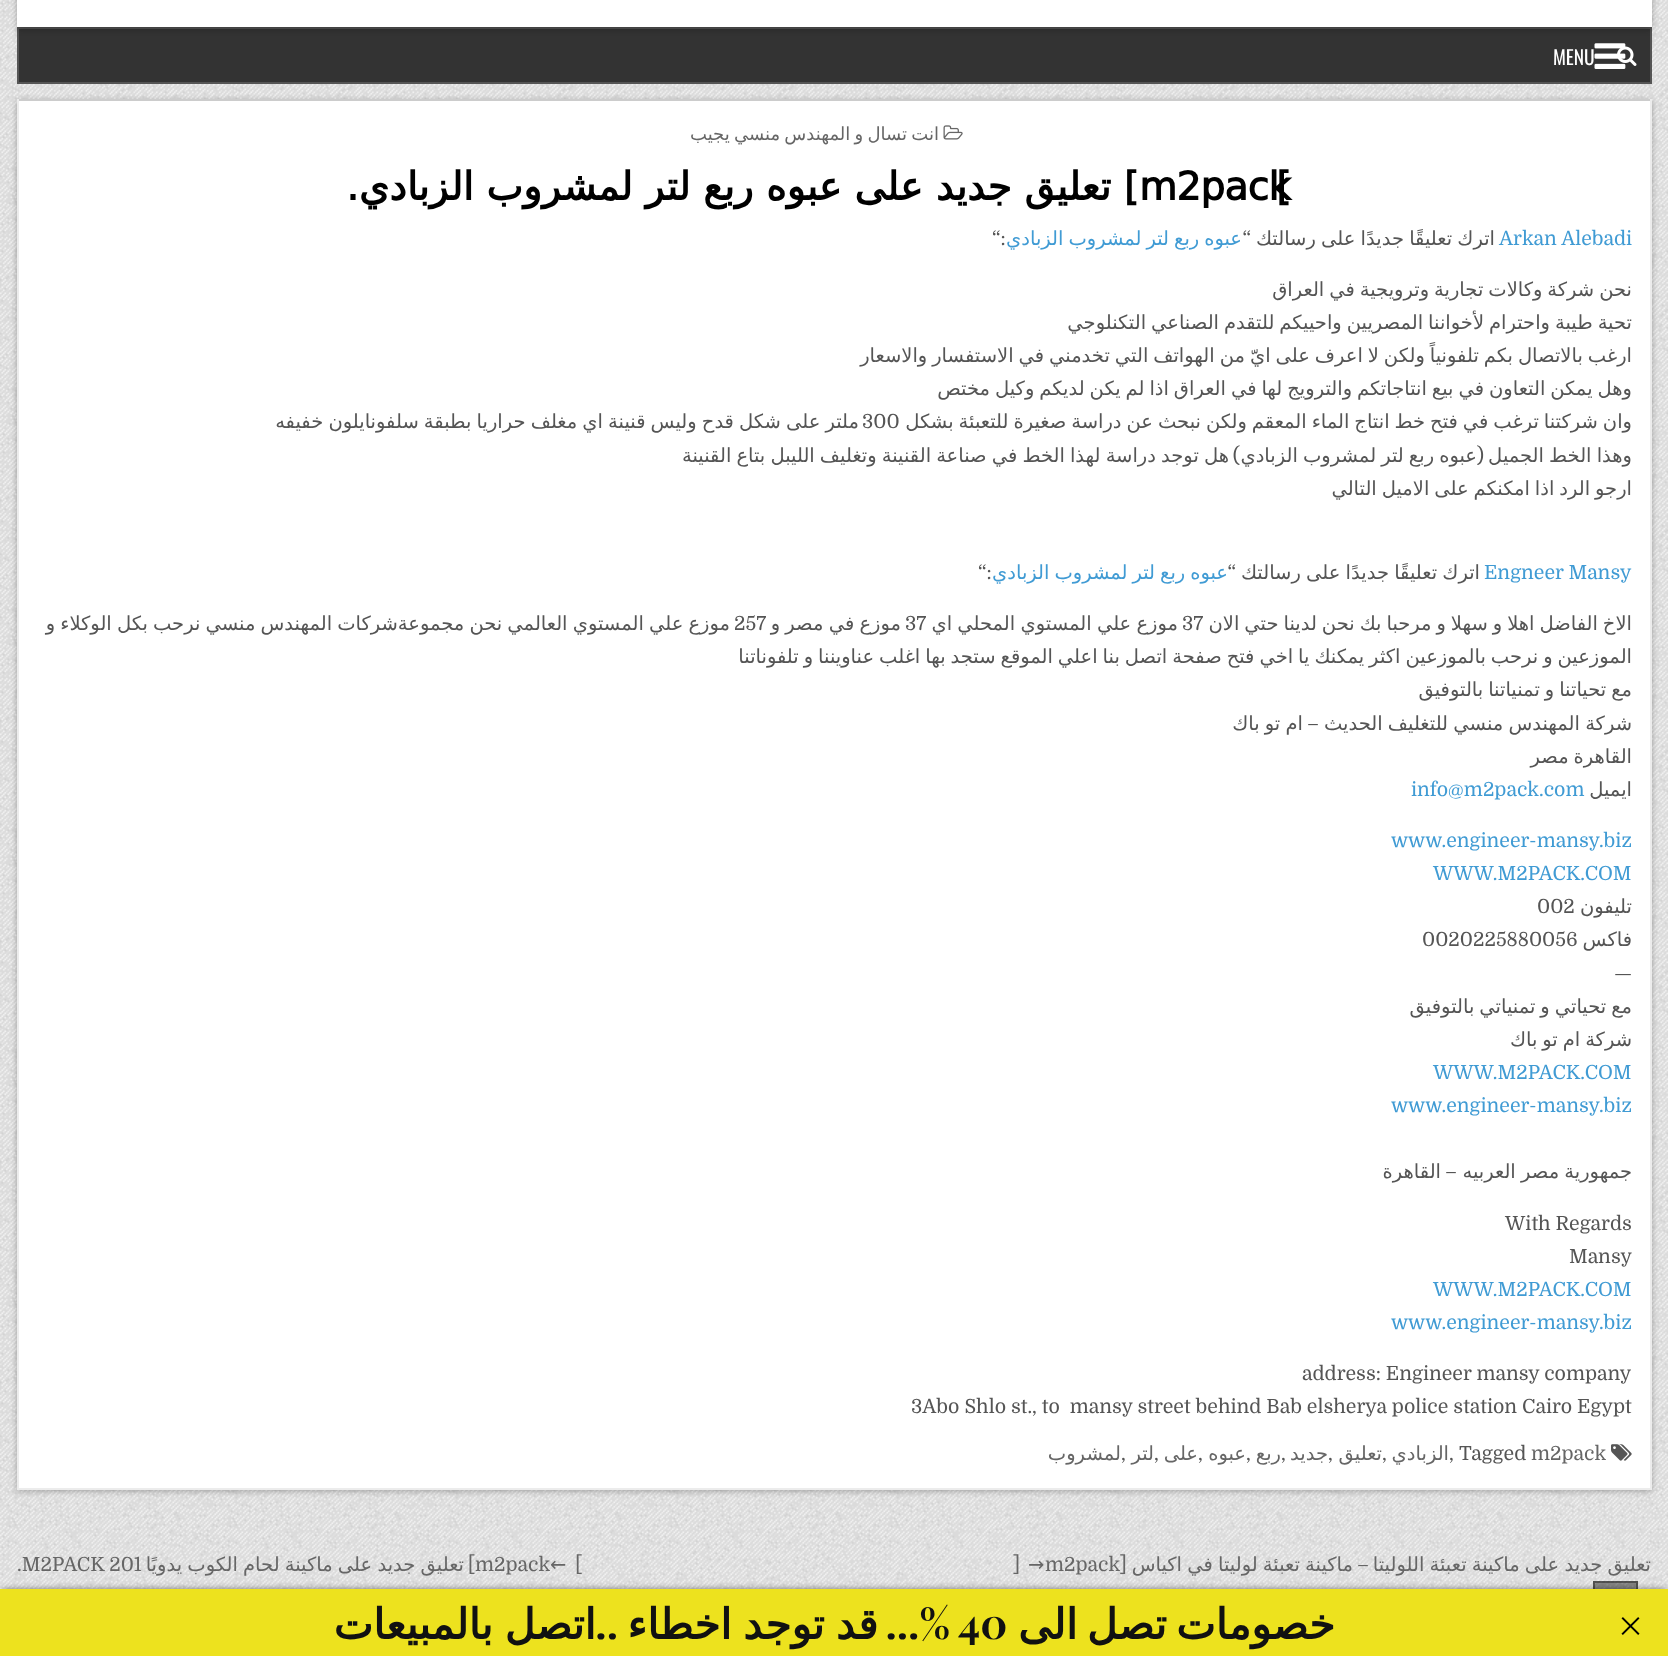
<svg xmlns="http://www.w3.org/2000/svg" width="1668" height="1656">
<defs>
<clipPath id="clip1"><rect x="17" y="1535" width="1635" height="91"/></clipPath>
</defs>
<rect width="100%" height="100%" fill="#fff"/>
<image x="0" y="0" width="1668" height="1589" href="media/1.png"/>
<rect x="18" y="28" width="1633" height="55" fill="#333" stroke="#555" stroke-width="2"/>
<rect x="17" y="-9" width="1635" height="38" fill="#0000004d" filter="blur(3px)"/>
<rect x="17" width="1635" height="27" fill="#fff"/>
<image x="1594" y="43" width="32" height="26" href="media/3.png"/>
<image x="1617" y="46" width="20" height="20" href="media/2.png"/>
<text x="1553" y="65" style="font-family:Oswald;font-size:19.5px;fill:#fff">MENU</text>
<rect x="17" y="101" width="1635" height="1390" fill="#0000004d" filter="blur(3px)"/>
<rect x="19" y="101" width="1631" height="1387" fill="#fff"/>
<rect x="17" y="99" width="1635" height="2" fill="#ccc"/>
<rect x="1650" y="99" width="2" height="1391" fill="#ececec"/>
<rect x="17" y="1488" width="1635" height="2" fill="#ececec"/>
<rect x="17" y="99" width="2" height="1391" fill="#ececec"/>
<image x="943" y="125" width="20" height="15" href="media/4.png"/>
<text x="939" y="140" word-spacing="-1.5" style="font-family:DejaVu Sans;font-size:18px;direction:rtl;fill:#666">انت تسال و المهندس منسي يجيب</text>
<text x="1139" y="200" style="font-family:DejaVu Sans;font-size:39px;font-weight:bold;letter-spacing:-0.75px;fill:#000">m2pack</text>
<text x="1139" y="200" word-spacing="0.25" style="font-family:DejaVu Sans;font-size:39px;font-weight:bold;letter-spacing:-0.75px;direction:rtl;fill:#000">] تعليق جديد على عبوه ربع لتر لمشروب الزبادي.</text>
<text x="1276" y="200" style="font-family:DejaVu Sans;font-size:39px;font-weight:bold;letter-spacing:-0.75px;fill:#000">[</text>
<text x="1499" y="245" style="font-family:Domine;font-size:19.5px;fill:#409bd4">Arkan Alebadi</text>
<text x="1495" y="245" word-spacing="-1" style="font-family:DejaVu Sans;font-size:19.5px;direction:rtl;fill:#555">اترك تعليقًا جديدًا على رسالتك</text>
<text x="1251" y="245" style="font-family:Domine;font-size:19.5px;direction:rtl;fill:#555">“</text>
<text x="1242" y="245" word-spacing="-1.25" style="font-family:DejaVu Sans;font-size:19.5px;direction:rtl;fill:#409bd4">عبوه ربع لتر لمشروب الزبادي</text>
<text x="992" y="245" style="font-family:Domine;font-size:19.5px;fill:#555">“:</text>
<text x="1632" y="296" word-spacing="-1.25" style="font-family:DejaVu Sans;font-size:19.5px;direction:rtl;fill:#555">نحن شركة وكالات تجارية وترويجية في العراق</text>
<text x="1632" y="329" word-spacing="-1.25" style="font-family:DejaVu Sans;font-size:19.5px;direction:rtl;fill:#555">تحية طيبة واحترام لأخواننا المصريين واحييكم للتقدم الصناعي التكنلوجي</text>
<text x="1632" y="362" word-spacing="-1.25" style="font-family:DejaVu Sans;font-size:19.5px;direction:rtl;fill:#555">ارغب بالاتصال بكم تلفونياً ولكن لا اعرف على ايّ من الهواتف التي تخدمني في الاستفسار والاسعار</text>
<text x="1632" y="395" word-spacing="-1.25" style="font-family:DejaVu Sans;font-size:19.5px;direction:rtl;fill:#555">وهل يمكن التعاون في بيع انتاجاتكم والترويج لها في العراق اذا لم يكن لديكم وكيل مختص</text>
<text x="1632" y="428" word-spacing="-1.25" style="font-family:DejaVu Sans;font-size:19.5px;direction:rtl;fill:#555">وان شركتنا ترغب في فتح خط انتاج الماء المعقم ولكن نبحث عن دراسة صغيرة للتعبئة بشكل</text>
<text x="859" y="428" word-spacing="-1.1" style="font-family:DejaVu Sans;font-size:19.5px;direction:rtl;fill:#555">ملتر على شكل قدح وليس قنينة اي مغلف حراريا بطبقة سلفونايلون خفيفه</text>
<text x="862" y="428" style="font-family:Domine;font-size:19.5px;fill:#555">300</text>
<text x="1477" y="462" word-spacing="-1.1" style="font-family:DejaVu Sans;font-size:19.5px;direction:rtl;fill:#555">عبوه ربع لتر لمشروب الزبادي</text>
<text x="1484" y="462" style="font-family:Domine;font-size:19.5px;direction:rtl;fill:#555">(</text>
<text x="1229" y="462" word-spacing="-1.1" style="font-family:DejaVu Sans;font-size:19.5px;direction:rtl;fill:#555">هل توجد دراسة لهذا الخط في صناعة القنينة وتغليف الليبل بتاع القنينة</text>
<text x="1240" y="462" style="font-family:Domine;font-size:19.5px;direction:rtl;fill:#555">)</text>
<text x="1632" y="462" word-spacing="-1.1" style="font-family:DejaVu Sans;font-size:19.5px;direction:rtl;fill:#555">وهذا الخط الجميل</text>
<text x="1632" y="495" word-spacing="-1.25" style="font-family:DejaVu Sans;font-size:19.5px;direction:rtl;fill:#555">ارجو الرد اذا امكنكم على الاميل التالي</text>
<text x="1484" y="579" style="font-family:Domine;font-size:19.5px;fill:#409bd4">Engneer Mansy</text>
<text x="1480" y="579" word-spacing="-1" style="font-family:DejaVu Sans;font-size:19.5px;direction:rtl;fill:#555">اترك تعليقًا جديدًا على رسالتك</text>
<text x="1236" y="579" style="font-family:Domine;font-size:19.5px;direction:rtl;fill:#555">“</text>
<text x="1228" y="579" word-spacing="-1.25" style="font-family:DejaVu Sans;font-size:19.5px;direction:rtl;fill:#409bd4">عبوه ربع لتر لمشروب الزبادي</text>
<text x="978" y="579" style="font-family:Domine;font-size:19.5px;fill:#555">“:</text>
<text x="1632" y="630" word-spacing="-1.25" style="font-family:DejaVu Sans;font-size:19.5px;direction:rtl;fill:#555">الاخ الفاضل اهلا و سهلا و مرحبا بك نحن لدينا حتي الان</text>
<text x="1182" y="630" style="font-family:Domine;font-size:19.5px;fill:#555">37</text>
<text x="1178" y="630" word-spacing="-1" style="font-family:DejaVu Sans;font-size:19.5px;direction:rtl;fill:#555">موزع علي المستوي المحلي اي</text>
<text x="905" y="630" style="font-family:Domine;font-size:19.5px;fill:#555">37</text>
<text x="901" y="630" word-spacing="-1" style="font-family:DejaVu Sans;font-size:19.5px;direction:rtl;fill:#555">موزع في مصر و</text>
<text x="730" y="630" word-spacing="-1.1" style="font-family:DejaVu Sans;font-size:19.5px;direction:rtl;fill:#555">موزع علي المستوي العالمي نحن مجموعةشركات المهندس منسي نرحب بكل الوكلاء و</text>
<text x="734" y="630" style="font-family:Domine;font-size:19.5px;fill:#555">257</text>
<text x="1632" y="663" word-spacing="-1.25" style="font-family:DejaVu Sans;font-size:19.5px;direction:rtl;fill:#555">الموزعين و نرحب بالموزعين اكثر يمكنك يا اخي فتح صفحة اتصل بنا اعلي الموقع ستجد بها اغلب عناويننا و تلفوناتنا</text>
<text x="1632" y="696" word-spacing="-1.25" style="font-family:DejaVu Sans;font-size:19.5px;direction:rtl;fill:#555">مع تحياتنا و تمنياتنا بالتوفيق</text>
<text x="1632" y="730" word-spacing="-1" style="font-family:DejaVu Sans;font-size:19.5px;direction:rtl;fill:#555">شركة المهندس منسي للتغليف الحديث</text>
<text x="1319" y="730" style="font-family:Domine;font-size:19.5px;direction:rtl;fill:#555">–</text>
<text x="1303" y="730" word-spacing="-1" style="font-family:DejaVu Sans;font-size:19.5px;direction:rtl;fill:#555">ام تو باك</text>
<text x="1632" y="763" word-spacing="-1.25" style="font-family:DejaVu Sans;font-size:19.5px;direction:rtl;fill:#555">القاهرة مصر</text>
<text x="1632" y="796" style="font-family:DejaVu Sans;font-size:19.5px;direction:rtl;fill:#555">ايميل</text>
<text x="1411" y="796" style="font-family:Domine;font-size:19.5px;fill:#409bd4">info@m2pack.com</text>
<text x="1391" y="847" style="font-family:Domine;font-size:19.5px;fill:#409bd4">www.engineer-mansy.biz</text>
<text x="1433" y="880" style="font-family:Domine;font-size:19.5px;fill:#409bd4">WWW.M2PACK.COM</text>
<text x="1632" y="913" style="font-family:DejaVu Sans;font-size:19.5px;direction:rtl;fill:#555">تليفون</text>
<text x="1537" y="913" style="font-family:Domine;font-size:19.5px;fill:#555">002</text>
<text x="1632" y="946" style="font-family:DejaVu Sans;font-size:19.5px;direction:rtl;fill:#555">فاكس</text>
<text x="1422" y="946" style="font-family:Domine;font-size:19.5px;fill:#555">0020225880056</text>
<text x="1614" y="980" style="font-family:Domine;font-size:19.5px;fill:#555">—</text>
<text x="1632" y="1013" word-spacing="-1.25" style="font-family:DejaVu Sans;font-size:19.5px;direction:rtl;fill:#555">مع تحياتي و تمنياتي بالتوفيق</text>
<text x="1632" y="1046" word-spacing="-1.25" style="font-family:DejaVu Sans;font-size:19.5px;direction:rtl;fill:#555">شركة ام تو باك</text>
<text x="1433" y="1079" style="font-family:Domine;font-size:19.5px;fill:#409bd4">WWW.M2PACK.COM</text>
<text x="1391" y="1112" style="font-family:Domine;font-size:19.5px;fill:#409bd4">www.engineer-mansy.biz</text>
<text x="1632" y="1178" word-spacing="-1" style="font-family:DejaVu Sans;font-size:19.5px;direction:rtl;fill:#555">جمهورية مصر العربيه</text>
<text x="1457" y="1178" style="font-family:Domine;font-size:19.5px;direction:rtl;fill:#555">–</text>
<text x="1441" y="1178" style="font-family:DejaVu Sans;font-size:19.5px;direction:rtl;fill:#555">القاهرة</text>
<text x="1505" y="1230" style="font-family:Domine;font-size:19.5px;fill:#555">With Regards</text>
<text x="1569" y="1263" style="font-family:Domine;font-size:19.5px;fill:#555">Mansy</text>
<text x="1433" y="1296" style="font-family:Domine;font-size:19.5px;fill:#409bd4">WWW.M2PACK.COM</text>
<text x="1391" y="1329" style="font-family:Domine;font-size:19.5px;fill:#409bd4">www.engineer-mansy.biz</text>
<text x="1302" y="1380" style="font-family:Domine;font-size:19.5px;fill:#555">address: Engineer mansy company</text>
<text x="911" y="1413" style="font-family:Domine;font-size:19.5px;fill:#555" xml:space="preserve">3Abo Shlo st., to  mansy street behind Bab elsherya police station Cairo Egypt</text>
<image x="1611" y="1444" width="21" height="17" href="media/5.png"/>
<text x="1531" y="1460" style="font-family:Domine;font-size:19.5px;fill:#666">m2pack</text>
<text x="1459" y="1460" style="font-family:Domine;font-size:19.5px;fill:#555">Tagged</text>
<text x="1449" y="1460" style="font-family:Domine;font-size:19.5px;fill:#555">,</text>
<text x="1449" y="1460" style="font-family:DejaVu Sans;font-size:19.5px;direction:rtl;fill:#666">الزبادي</text>
<text x="1382" y="1460" style="font-family:Domine;font-size:19.5px;fill:#555">,</text>
<text x="1382" y="1460" style="font-family:DejaVu Sans;font-size:19.5px;direction:rtl;fill:#666">تعليق</text>
<text x="1328" y="1460" style="font-family:Domine;font-size:19.5px;fill:#555">,</text>
<text x="1328" y="1460" style="font-family:DejaVu Sans;font-size:19.5px;direction:rtl;fill:#666">جديد</text>
<text x="1281" y="1460" style="font-family:Domine;font-size:19.5px;fill:#555">,</text>
<text x="1281" y="1460" style="font-family:DejaVu Sans;font-size:19.5px;direction:rtl;fill:#666">ربع</text>
<text x="1246" y="1460" style="font-family:Domine;font-size:19.5px;fill:#555">,</text>
<text x="1246" y="1460" style="font-family:DejaVu Sans;font-size:19.5px;direction:rtl;fill:#666">عبوه</text>
<text x="1198" y="1460" style="font-family:Domine;font-size:19.5px;fill:#555">,</text>
<text x="1198" y="1460" style="font-family:DejaVu Sans;font-size:19.5px;direction:rtl;fill:#666">على</text>
<text x="1154" y="1460" style="font-family:Domine;font-size:19.5px;fill:#555">,</text>
<text x="1154" y="1460" style="font-family:DejaVu Sans;font-size:19.5px;direction:rtl;fill:#666">لتر</text>
<text x="1121" y="1460" style="font-family:Domine;font-size:19.5px;fill:#555">,</text>
<text x="1121" y="1460" style="font-family:DejaVu Sans;font-size:19.5px;direction:rtl;fill:#666">لمشروب</text>
<g clip-path="url(#clip1)">
<text x="1651" y="1571" word-spacing="-1" style="font-family:DejaVu Sans;font-size:19.5px;direction:rtl;fill:#666">تعليق جديد على ماكينة تعبئة اللوليتا</text>
</g>
<text x="1369" y="1571" style="font-family:Domine;font-size:19.5px;direction:rtl;fill:#666">–</text>
<text x="1353" y="1571" word-spacing="-1" style="font-family:DejaVu Sans;font-size:19.5px;direction:rtl;fill:#666">ماكينة تعبئة لوليتا في اكياس</text>
<text x="1127" y="1571" style="font-family:Domine;font-size:19.5px;direction:rtl;fill:#666">[</text>
<text x="1045" y="1571" style="font-family:Domine;font-size:19.5px;fill:#666">m2pack</text>
<text x="1028" y="1571" style="font-family:DejaVu Sans;font-size:19.5px;fill:#666">→</text>
<text x="1013" y="1571" style="font-family:Domine;font-size:19.5px;fill:#666">]</text>
<text x="575" y="1571" style="font-family:Domine;font-size:19.5px;fill:#666">[</text>
<text x="475" y="1571" style="font-family:Domine;font-size:19.5px;fill:#666">m2pack</text>
<text x="464" y="1571" word-spacing="-1" style="font-family:DejaVu Sans;font-size:19.5px;direction:rtl;fill:#666">تعليق جديد على ماكينة لحام الكوب يدويًا</text>
<text x="475" y="1571" style="font-family:Domine;font-size:19.5px;direction:rtl;fill:#666">]</text>
<text x="17" y="1571" style="font-family:Domine;font-size:19.5px;fill:#666">.M2PACK 201</text>
<text x="550" y="1571" style="font-family:DejaVu Sans;font-size:19.5px;fill:#666">←</text>
<rect x="1593" y="1581" width="45" height="8" fill="#00000066"/>
<rect x="1594" y="1582" width="43" height="43" fill="none" stroke="#00000066" stroke-width="2"/>
<rect x="3" y="1589" width="1662" height="61" fill="#00000080" filter="blur(3px)"/>
<rect y="1589" width="1668" height="67" fill="#ede21e"/>
<image x="1621" y="1617" width="19" height="18" href="media/6.png"/>
<text x="1335" y="1639" word-spacing="-4" style="font-family:DejaVu Sans;font-size:42px;font-weight:bold;direction:rtl;fill:#111">خصومات تصل الى</text>
<text x="958" y="1639" style="font-family:Playfair Display;font-size:42px;font-weight:bold;fill:#111">40</text>
<text x="950" y="1639" style="font-family:Playfair Display;font-size:42px;font-weight:bold;direction:rtl;fill:#111">%...</text>
<text x="878" y="1639" word-spacing="-2" style="font-family:DejaVu Sans;font-size:42px;font-weight:bold;direction:rtl;fill:#111">قد توجد اخطاء</text>
<text x="618" y="1639" style="font-family:Playfair Display;font-size:42px;font-weight:bold;direction:rtl;fill:#111">..</text>
<text x="596" y="1639" word-spacing="-2" style="font-family:DejaVu Sans;font-size:42px;font-weight:bold;direction:rtl;fill:#111">اتصل بالمبيعات</text>
</svg>
